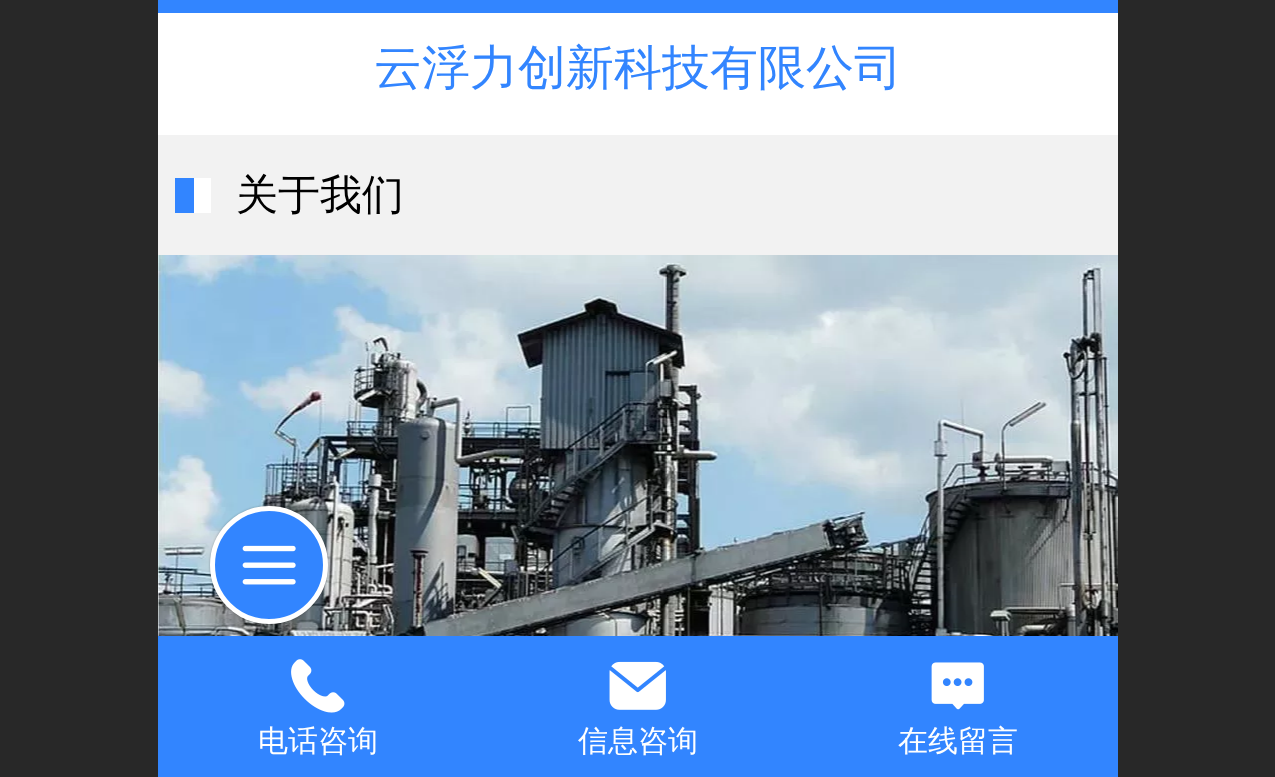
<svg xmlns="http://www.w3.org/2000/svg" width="1275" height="777">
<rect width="100%" height="100%" fill="#fff"/>
<rect width="158" height="777" fill="#282828"/>
<rect x="158" width="960" height="13" fill="#3285ff"/>
<text x="374" y="84" style="font-family:WenQuanYi Zen Hei;font-size:48px;font-weight:500;fill:#3285ff">云浮力创新科技有限公司</text>
<image x="158" y="255" width="960" height="381" href="media/2.png"/>
<rect x="210" y="506" width="118" height="118" rx="59" fill="#0000004d" filter="blur(1px)"/>
<circle cx="269" cy="565" r="56.5" fill="#3285ff" stroke="#fff" stroke-width="5"/>
<image x="242" y="545" width="54" height="40" href="media/1.png"/>
<rect x="158" y="135" width="960" height="120" fill="#f2f2f2"/>
<rect x="175" y="178" width="19" height="35" fill="#3285ff"/>
<rect x="194" y="178" width="17" height="35" fill="#fff"/>
<text x="236" y="209" style="font-family:WenQuanYi Zen Hei;font-size:42px;font-weight:500;fill:#000">关于我们</text>
<rect x="158" y="636" width="960" height="141" fill="#3285ff"/>
<image x="291" y="659" width="54" height="54" href="media/3.png"/>
<text x="258" y="751" style="font-family:WenQuanYi Zen Hei;font-size:30px;font-weight:500;fill:#fff">电话咨询</text>
<image x="609" y="661" width="57" height="49" href="media/4.png"/>
<text x="578" y="751" style="font-family:WenQuanYi Zen Hei;font-size:30px;font-weight:500;fill:#fff">信息咨询</text>
<image x="931" y="662" width="53" height="48" href="media/5.png"/>
<text x="898" y="751" style="font-family:WenQuanYi Zen Hei;font-size:30px;font-weight:500;fill:#fff">在线留言</text>
<rect x="1118" width="157" height="777" fill="#282828"/>
</svg>
